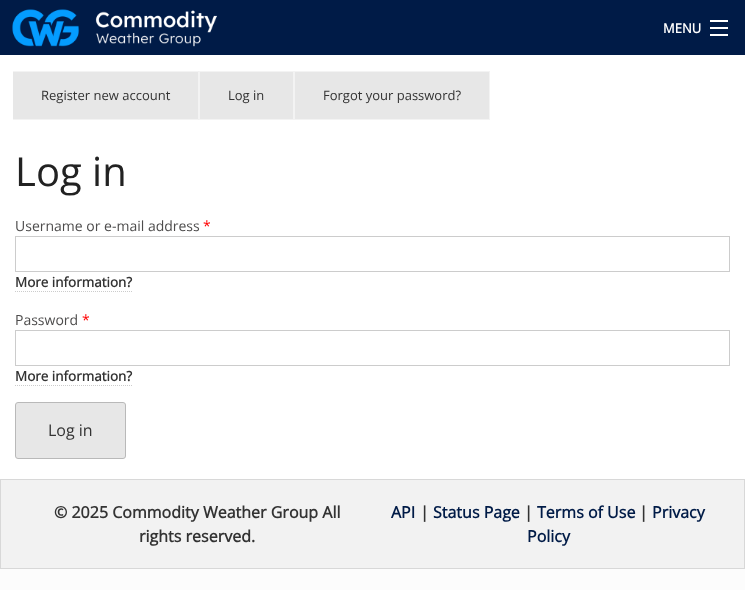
<svg xmlns="http://www.w3.org/2000/svg" width="745" height="590">
<rect width="100%" height="100%" fill="#fcfcfc"/>
<rect width="745" height="55" fill="#001b47"/>
<image x="12" y="9" width="205" height="38" href="media/1.png"/>
<text x="663" y="33" style="font-family:Open Sans;font-size:13px;font-weight:bold;fill:#fff">MENU</text>
<rect x="710" y="34" width="18" height="2" fill="#fff"/>
<rect x="710" y="27" width="18" height="2" fill="#fff"/>
<rect x="710" y="20" width="18" height="2" fill="#fff"/>
<rect y="55" width="745" height="424" fill="#fff"/>
<rect x="13" y="71" width="186" height="49" fill="#e7e7e7"/>
<path d="M13 71h186l-1 1h-185z" fill="#f3f3f3"/>
<path d="M199 71v49l-1-1v-47z" fill="#ffffff80"/>
<path d="M199 120h-186v-1h185z" fill="#ffffff80"/>
<text x="41" y="100" style="font-family:Open Sans;font-size:13px;fill:#333">Register new account</text>
<rect x="199.5" y="71.5" width="94" height="48" fill="#e7e7e7" stroke="#f3f3f3"/>
<text x="228" y="100" style="font-family:Open Sans;font-size:13px;fill:#333">Log in</text>
<rect x="294.5" y="71.5" width="195" height="48" fill="#e7e7e7" stroke="#f3f3f3"/>
<text x="323" y="100" style="font-family:Open Sans;font-size:13px;fill:#333">Forgot your password?</text>
<text x="15" y="186" style="font-family:Open Sans;font-size:40px;fill:#222">Log in</text>
<text x="15" y="231" style="font-family:Open Sans;font-size:14px;fill:#4d4c4c">Username or e-mail address</text>
<text x="203" y="231" style="font-family:Open Sans;font-size:14px;fill:#f00">*</text>
<rect x="15.5" y="236.5" width="714" height="35" fill="none" stroke="#ccc"/>
<text x="15" y="287" style="font-family:Open Sans;font-size:13.5px;font-weight:bold;fill:#333">More information?</text>
<path d="M15 291.5h118" fill="none" stroke="#ccc" stroke-dasharray="1 1"/>
<text x="15" y="325" style="font-family:Open Sans;font-size:14px;fill:#4d4c4c">Password</text>
<text x="82" y="325" style="font-family:Open Sans;font-size:14px;fill:#f00">*</text>
<rect x="15.5" y="330.5" width="714" height="35" fill="none" stroke="#ccc"/>
<text x="15" y="381" style="font-family:Open Sans;font-size:13.5px;font-weight:bold;fill:#333">More information?</text>
<path d="M15 385.5h118" fill="none" stroke="#ccc" stroke-dasharray="1 1"/>
<rect x="15.5" y="402.5" width="110" height="56" rx="2.5" fill="#e7e7e7" stroke="#b9b9b9"/>
<text x="48" y="436" style="font-family:Open Sans;font-size:16px;fill:#333">Log in</text>
<rect x="0.5" y="479.5" width="744" height="89" fill="#f2f2f2" stroke="#d8d8d8"/>
<text x="54" y="518" style="font-family:Open Sans;font-size:16px;font-weight:bold;fill:#333">© 2025 Commodity Weather Group All</text>
<text x="139" y="542" style="font-family:Open Sans;font-size:16px;font-weight:bold;fill:#333">rights reserved.</text>
<text x="391" y="518" style="font-family:Open Sans;font-size:16px;font-weight:bold;fill:#001b47">API</text>
<text x="420" y="518" style="font-family:Open Sans;font-size:16px;font-weight:bold;fill:#333">|</text>
<text x="433" y="518" style="font-family:Open Sans;font-size:16px;font-weight:bold;fill:#001b47">Status Page</text>
<text x="524" y="518" style="font-family:Open Sans;font-size:16px;font-weight:bold;fill:#333">|</text>
<text x="537" y="518" style="font-family:Open Sans;font-size:16px;font-weight:bold;fill:#001b47">Terms of Use</text>
<text x="639" y="518" style="font-family:Open Sans;font-size:16px;font-weight:bold;fill:#333">|</text>
<text x="652" y="518" style="font-family:Open Sans;font-size:16px;font-weight:bold;fill:#001b47">Privacy</text>
<text x="527" y="542" style="font-family:Open Sans;font-size:16px;font-weight:bold;fill:#001b47">Policy</text>
</svg>
